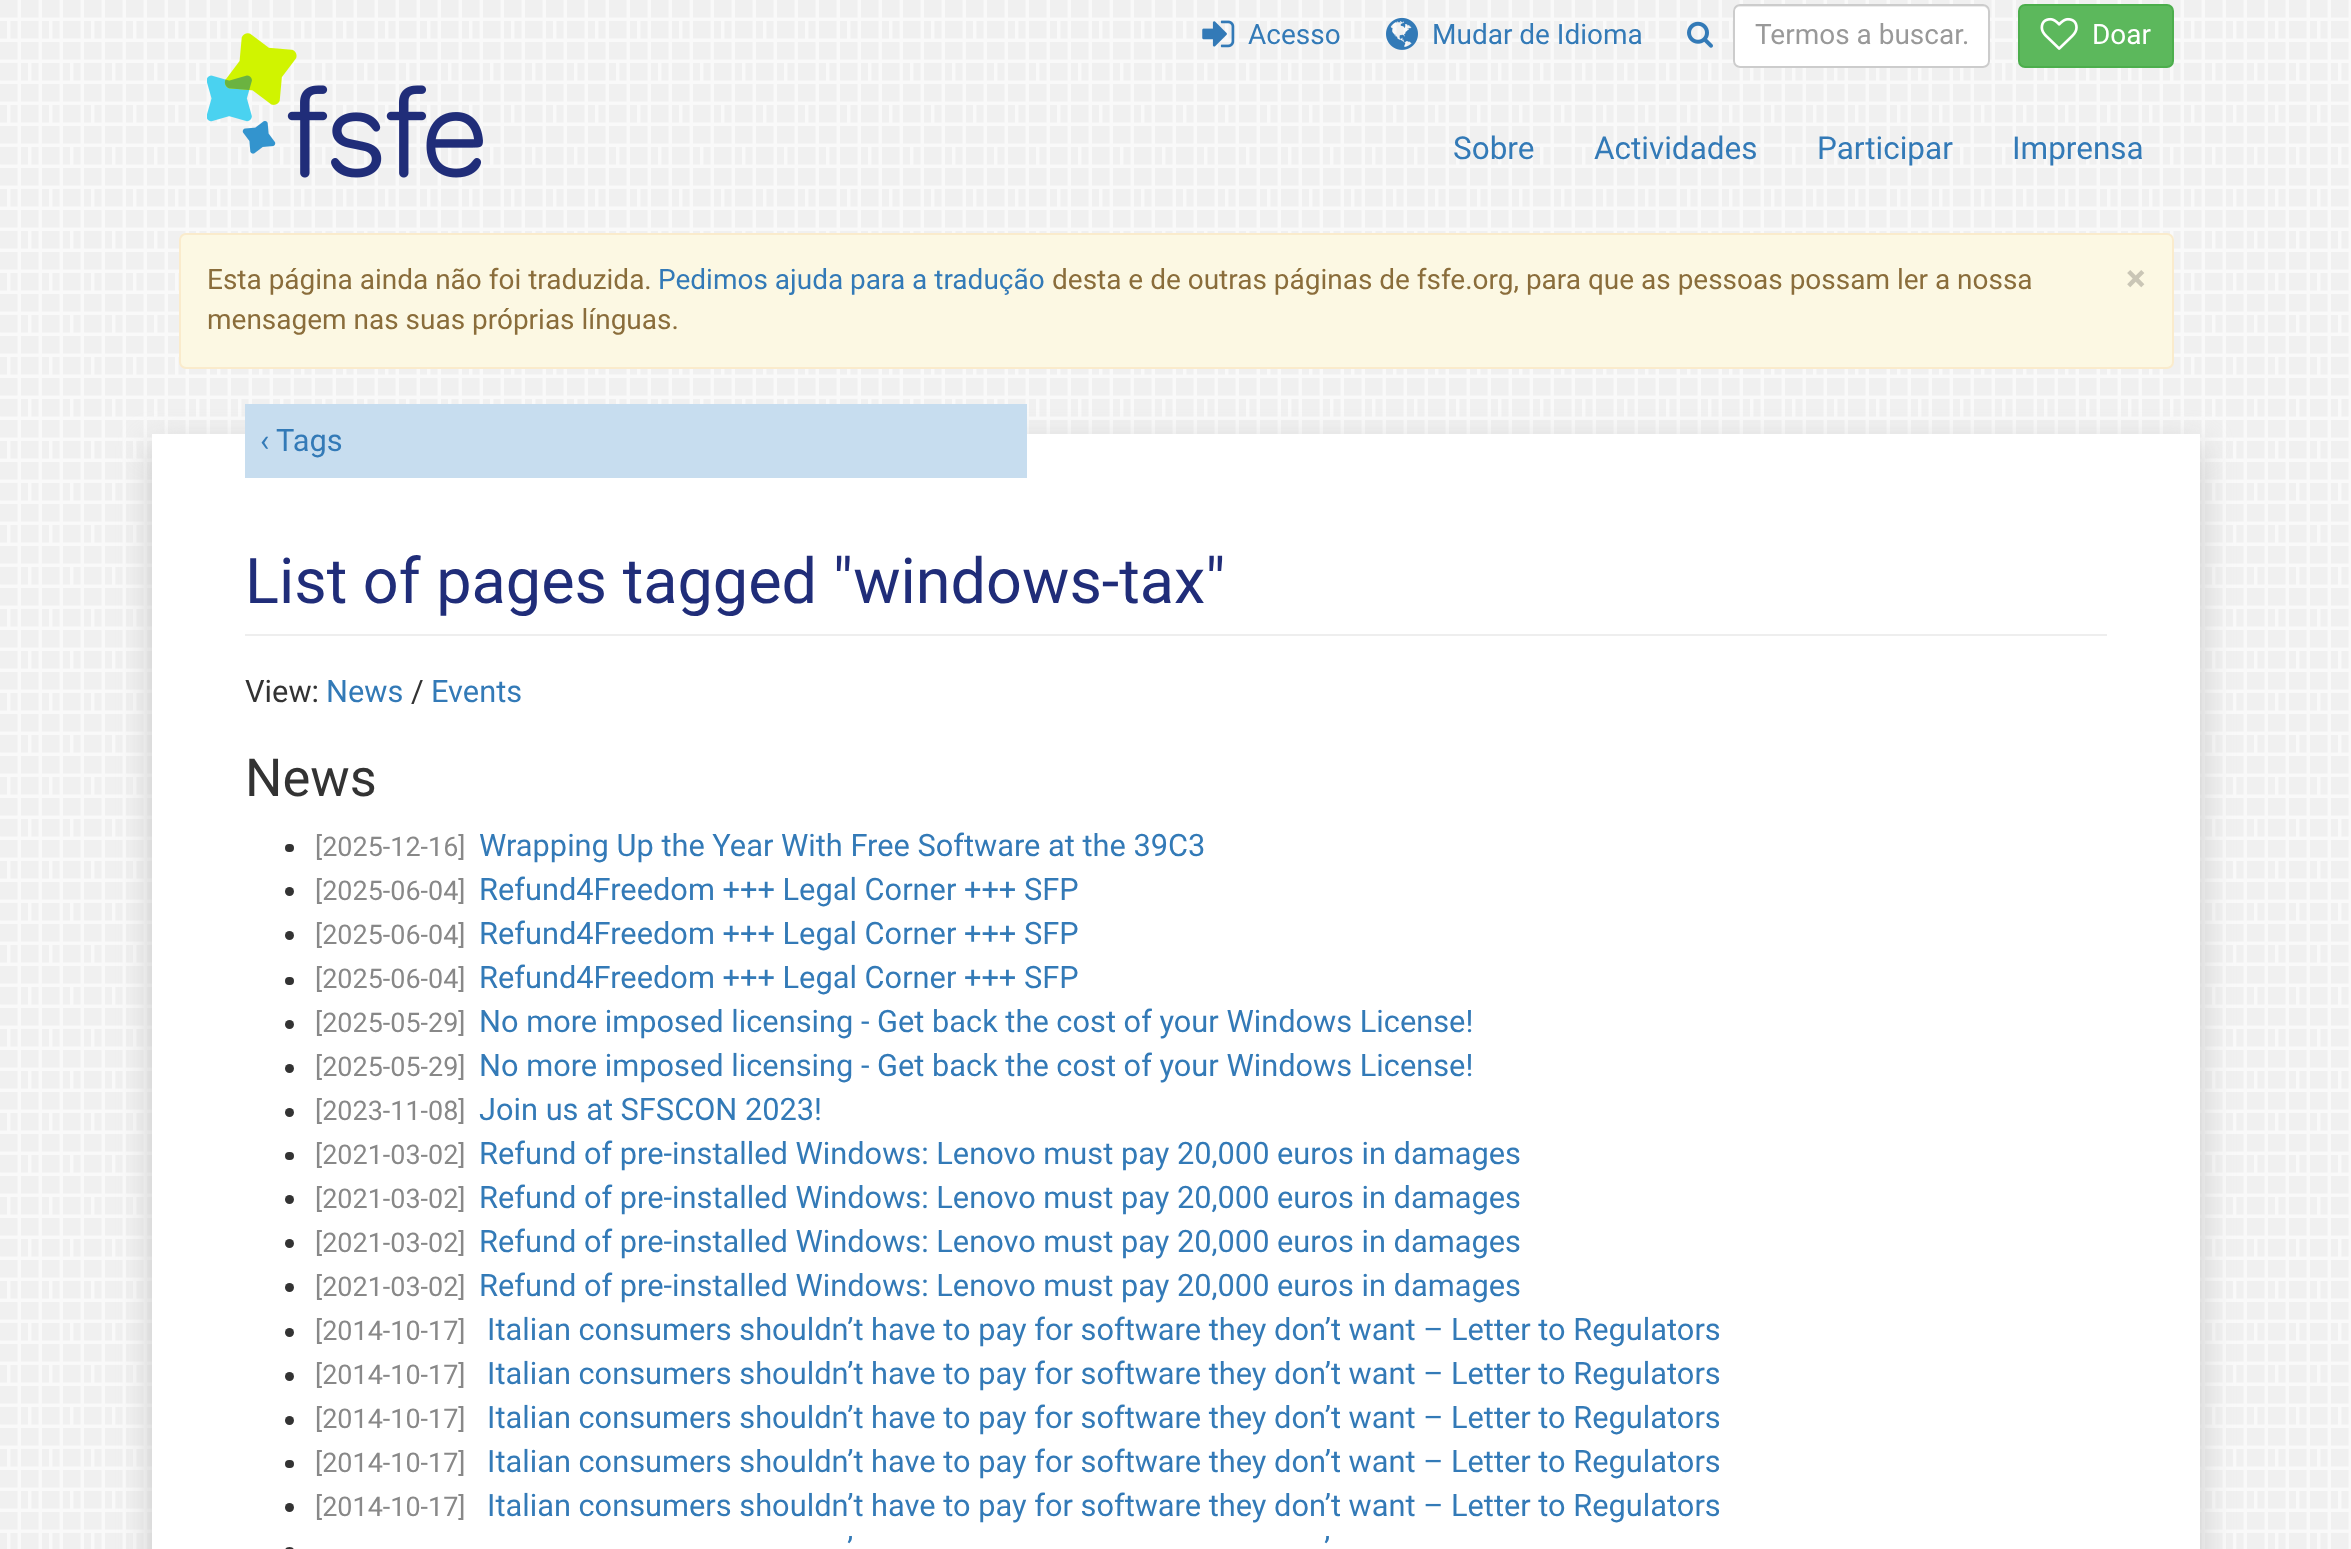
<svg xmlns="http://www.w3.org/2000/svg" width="2351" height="1549">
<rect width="100%" height="100%" fill="#f9f9f9"/>
<image x="0" y="0" width="2349" height="1549" href="media/1.png"/>
<image x="207" y="33" width="276" height="145" href="media/2.png"/>
<image x="1202" y="20" width="33" height="28" href="media/3.png"/>
<text x="1248" y="44" style="font-family:Roboto;font-size:28px;fill:#337ab7">Acesso</text>
<image x="1386" y="17" width="32" height="33" href="media/4.png"/>
<text x="1432" y="44" style="font-family:Roboto;font-size:28px;fill:#337ab7">Mudar de Idioma</text>
<image x="1687" y="21" width="26" height="27" href="media/5.png"/>
<rect x="1733" y="4" width="257" height="64" rx="7" fill="#fff"/>
<path d="M1740 7h243c3 0 5 2 5 5c0-3-1-7-5-7h-244c-4 0-5 4-5 7c0-3 3-5 6-5z" fill="#ececec"/>
<rect x="1734" y="5" width="255" height="62" rx="6" fill="none" stroke="#ccc" stroke-width="2"/>
<text x="1755" y="44" style="font-family:Roboto;font-size:28px;fill:#999">Termos a buscar.</text>
<rect x="2019" y="5" width="154" height="62" rx="6" fill="#5cb85c" stroke="#4cae4c" stroke-width="2"/>
<image x="2040" y="17" width="38" height="33" href="media/6.png"/>
<text x="2092" y="44" style="font-family:Roboto;font-size:28px;fill:#fff">Doar</text>
<text x="1453" y="159" style="font-family:Roboto;font-size:31.5px;fill:#337ab7">Sobre</text>
<text x="1594" y="159" style="font-family:Roboto;font-size:31.5px;fill:#337ab7">Actividades</text>
<text x="1817" y="159" style="font-family:Roboto;font-size:31.5px;fill:#337ab7">Participar</text>
<text x="2012" y="159" style="font-family:Roboto;font-size:31.5px;fill:#337ab7">Imprensa</text>
<rect x="180" y="234" width="1993" height="134" rx="6" fill="#fcf8e3" stroke="#faebcc" stroke-width="2"/>
<text x="207" y="289" style="font-family:Roboto;font-size:28px;fill:#8a6d3b">Esta página ainda não foi traduzida.</text>
<text x="658" y="289" style="font-family:Roboto;font-size:28px;fill:#337ab7">Pedimos ajuda para a tradução</text>
<text x="1052" y="289" style="font-family:Roboto;font-size:28px;fill:#8a6d3b">desta e de outras páginas de fsfe.org, para que as pessoas possam ler a nossa</text>
<text x="207" y="329" style="font-family:Roboto;font-size:28px;fill:#8a6d3b">mensagem nas suas próprias línguas.</text>
<text x="2126" y="291" style="font-family:Roboto;font-size:37px;font-weight:bold;fill:#cac6b6">×</text>
<rect x="152" y="446" width="2048" height="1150" fill="#c8c8c8" filter="blur(15.5px)"/>
<rect x="152" y="434" width="2048" height="1115" fill="#fff"/>
<rect x="245" y="404" width="782" height="74" fill="#c7ddef"/>
<text x="260" y="451" style="font-family:Roboto;font-size:30.8px;fill:#337ab7">‹</text>
<text x="276" y="451" style="font-family:Roboto;font-size:30.8px;fill:#337ab7">Tags</text>
<rect x="245" y="634" width="1862" height="2" fill="#eee"/>
<text x="245" y="603" style="font-family:Roboto;font-size:63px;fill:#202d79">List of pages tagged "windows-tax"</text>
<text x="245" y="702" style="font-family:Roboto;font-size:30.8px;fill:#333">View:</text>
<text x="326" y="702" style="font-family:Roboto;font-size:30.8px;fill:#337ab7">News</text>
<text x="411" y="702" style="font-family:Roboto;font-size:30.8px;fill:#333">/</text>
<text x="431" y="702" style="font-family:Roboto;font-size:30.8px;fill:#337ab7">Events</text>
<text x="245" y="796" style="font-family:Roboto;font-size:52.5px;fill:#333">News</text>
<rect x="285" y="844" width="9" height="8" rx="4" fill="#333"/>
<text x="315" y="856" style="font-family:Roboto;font-size:27px;fill:#888">[2025-12-16]</text>
<text x="479" y="856" style="font-family:Roboto;font-size:30.8px;fill:#337ab7">Wrapping Up the Year With Free Software at the 39C3</text>
<circle cx="289.5" cy="891.5" r="4.5" fill="#333"/>
<text x="315" y="900" style="font-family:Roboto;font-size:27px;fill:#888">[2025-06-04]</text>
<text x="479" y="900" style="font-family:Roboto;font-size:30.8px;fill:#337ab7">Refund4Freedom +++ Legal Corner +++ SFP</text>
<circle cx="289.5" cy="935.5" r="4.5" fill="#333"/>
<text x="315" y="944" style="font-family:Roboto;font-size:27px;fill:#888">[2025-06-04]</text>
<text x="479" y="944" style="font-family:Roboto;font-size:30.8px;fill:#337ab7">Refund4Freedom +++ Legal Corner +++ SFP</text>
<rect x="285" y="977" width="9" height="8" rx="4" fill="#333"/>
<text x="315" y="988" style="font-family:Roboto;font-size:27px;fill:#888">[2025-06-04]</text>
<text x="479" y="988" style="font-family:Roboto;font-size:30.8px;fill:#337ab7">Refund4Freedom +++ Legal Corner +++ SFP</text>
<circle cx="289.5" cy="1024.5" r="4.5" fill="#333"/>
<text x="315" y="1032" style="font-family:Roboto;font-size:27px;fill:#888">[2025-05-29]</text>
<text x="479" y="1032" style="font-family:Roboto;font-size:30.8px;fill:#337ab7">No more imposed licensing - Get back the cost of your Windows License!</text>
<circle cx="289.5" cy="1068.5" r="4.5" fill="#333"/>
<text x="315" y="1076" style="font-family:Roboto;font-size:27px;fill:#888">[2025-05-29]</text>
<text x="479" y="1076" style="font-family:Roboto;font-size:30.8px;fill:#337ab7">No more imposed licensing - Get back the cost of your Windows License!</text>
<circle cx="289.5" cy="1112.5" r="4.5" fill="#333"/>
<text x="315" y="1120" style="font-family:Roboto;font-size:27px;fill:#888">[2023-11-08]</text>
<text x="479" y="1120" style="font-family:Roboto;font-size:30.8px;fill:#337ab7">Join us at SFSCON 2023!</text>
<rect x="285" y="1152" width="9" height="8" rx="4" fill="#333"/>
<text x="315" y="1164" style="font-family:Roboto;font-size:27px;fill:#888">[2021-03-02]</text>
<text x="479" y="1164" style="font-family:Roboto;font-size:30.8px;fill:#337ab7">Refund of pre-installed Windows: Lenovo must pay 20,000 euros in damages</text>
<circle cx="289.5" cy="1199.5" r="4.5" fill="#333"/>
<text x="315" y="1208" style="font-family:Roboto;font-size:27px;fill:#888">[2021-03-02]</text>
<text x="479" y="1208" style="font-family:Roboto;font-size:30.8px;fill:#337ab7">Refund of pre-installed Windows: Lenovo must pay 20,000 euros in damages</text>
<circle cx="289.5" cy="1243.5" r="4.5" fill="#333"/>
<text x="315" y="1252" style="font-family:Roboto;font-size:27px;fill:#888">[2021-03-02]</text>
<text x="479" y="1252" style="font-family:Roboto;font-size:30.8px;fill:#337ab7">Refund of pre-installed Windows: Lenovo must pay 20,000 euros in damages</text>
<circle cx="289.5" cy="1287.5" r="4.5" fill="#333"/>
<text x="315" y="1296" style="font-family:Roboto;font-size:27px;fill:#888">[2021-03-02]</text>
<text x="479" y="1296" style="font-family:Roboto;font-size:30.8px;fill:#337ab7">Refund of pre-installed Windows: Lenovo must pay 20,000 euros in damages</text>
<circle cx="289.5" cy="1332.5" r="4.5" fill="#333"/>
<text x="315" y="1340" style="font-family:Roboto;font-size:27px;fill:#888">[2014-10-17]</text>
<text x="487" y="1340" style="font-family:Roboto;font-size:30.8px;fill:#337ab7">Italian consumers shouldn’t have to pay for software they don’t want – Letter to Regulators</text>
<circle cx="289.5" cy="1376.5" r="4.5" fill="#333"/>
<text x="315" y="1384" style="font-family:Roboto;font-size:27px;fill:#888">[2014-10-17]</text>
<text x="487" y="1384" style="font-family:Roboto;font-size:30.8px;fill:#337ab7">Italian consumers shouldn’t have to pay for software they don’t want – Letter to Regulators</text>
<circle cx="289.5" cy="1420.5" r="4.5" fill="#333"/>
<text x="315" y="1428" style="font-family:Roboto;font-size:27px;fill:#888">[2014-10-17]</text>
<text x="487" y="1428" style="font-family:Roboto;font-size:30.8px;fill:#337ab7">Italian consumers shouldn’t have to pay for software they don’t want – Letter to Regulators</text>
<rect x="285" y="1460" width="9" height="8" rx="4" fill="#333"/>
<text x="315" y="1472" style="font-family:Roboto;font-size:27px;fill:#888">[2014-10-17]</text>
<text x="487" y="1472" style="font-family:Roboto;font-size:30.8px;fill:#337ab7">Italian consumers shouldn’t have to pay for software they don’t want – Letter to Regulators</text>
<circle cx="289.5" cy="1507.5" r="4.5" fill="#333"/>
<text x="315" y="1516" style="font-family:Roboto;font-size:27px;fill:#888">[2014-10-17]</text>
<text x="487" y="1516" style="font-family:Roboto;font-size:30.8px;fill:#337ab7">Italian consumers shouldn’t have to pay for software they don’t want – Letter to Regulators</text>
<text x="847" y="1559" style="font-family:Roboto;font-size:30.8px;fill:#337ab7">’</text>
<text x="1324" y="1559" style="font-family:Roboto;font-size:30.8px;fill:#337ab7">’</text>
<rect x="285" y="1547" width="9" height="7" rx="4.5" fill="#333"/>
</svg>
